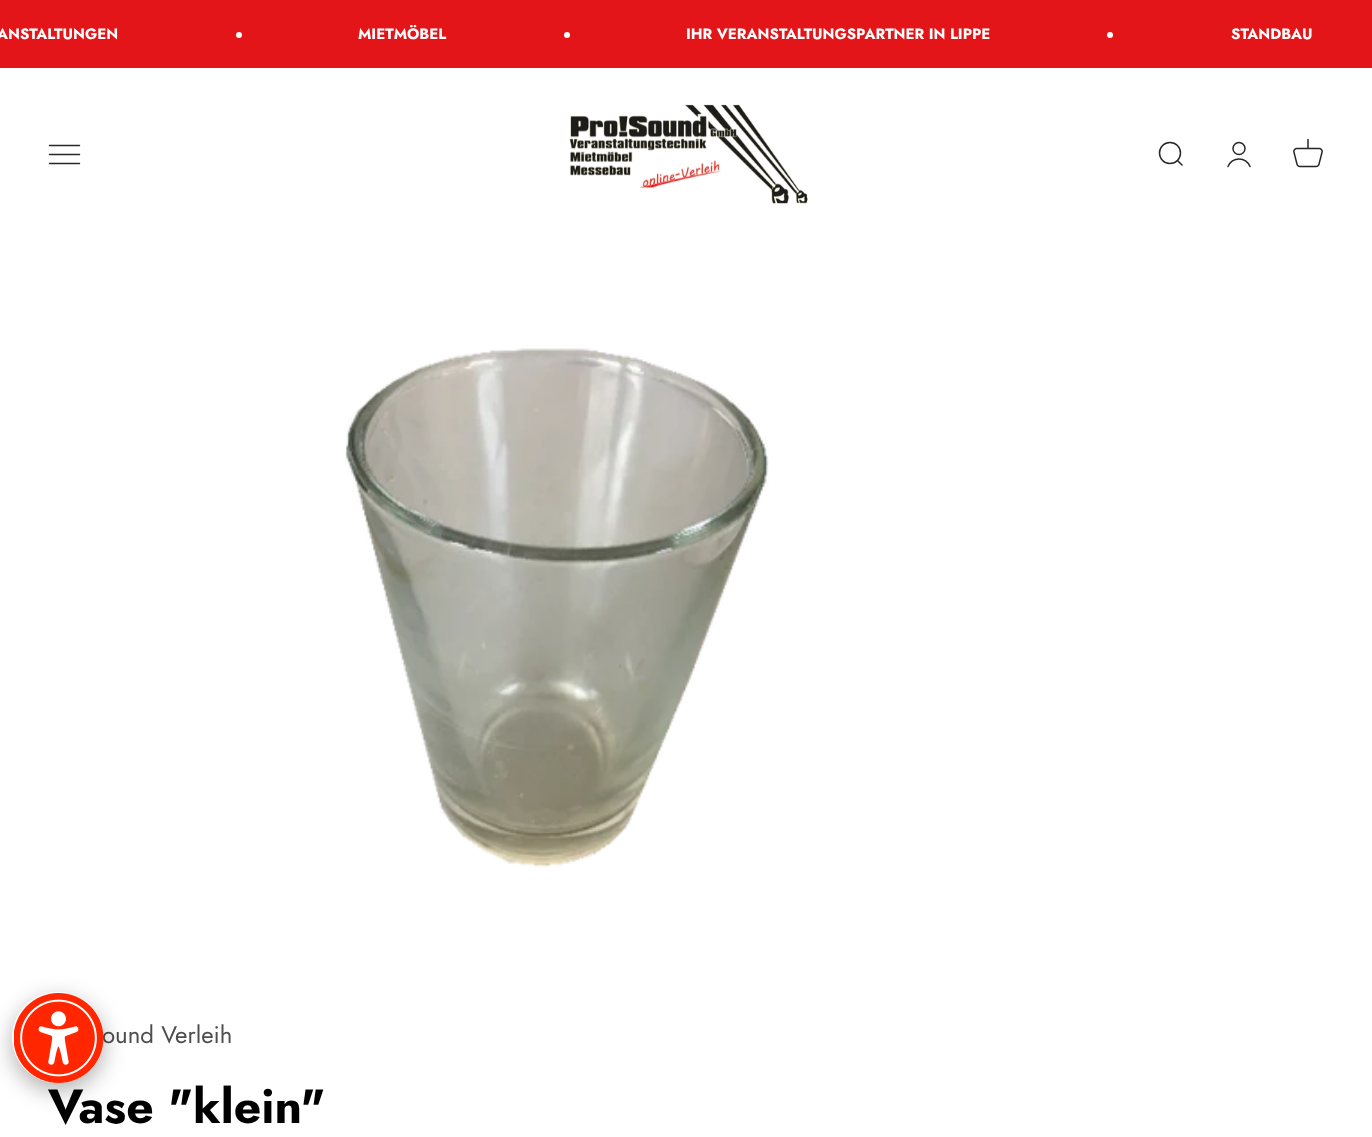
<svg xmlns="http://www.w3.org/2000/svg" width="1372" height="1137">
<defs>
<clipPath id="clip1"><path d="M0 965h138v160h-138zm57.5 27h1c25 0 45.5 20.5 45.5 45.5c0 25-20.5 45.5-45.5 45.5h-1c-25 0-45.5-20.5-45.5-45.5c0-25 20.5-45.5 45.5-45.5z" clip-rule="evenodd"/></clipPath>
</defs>
<rect width="100%" height="100%" fill="#fff"/>
<rect width="1372" height="68" fill="#e31518"/>
<text x="-3" y="39" style="font-family:Jost;font-size:15px;font-weight:bold;fill:#fff">ANSTALTUNGEN</text>
<circle cx="239" cy="35" r="3" fill="#fff"/>
<text x="358" y="39" style="font-family:Jost;font-size:15px;font-weight:bold;fill:#fff">MIETMÖBEL</text>
<circle cx="567" cy="35" r="3" fill="#fff"/>
<text x="686" y="39" style="font-family:Jost;font-size:15px;font-weight:bold;fill:#fff">IHR VERANSTALTUNGSPARTNER IN LIPPE</text>
<circle cx="1110" cy="35" r="3" fill="#fff"/>
<text x="1231" y="39" style="font-family:Jost;font-size:15px;font-weight:bold;fill:#fff">STANDBAU</text>
<path d="M49.5 145.5h30m-30 9h30m-30 9h30" fill="none" stroke="#272727" stroke-width="1.5" stroke-linecap="round"/>
<image x="569" y="104" width="239" height="100" href="media/1.png"/>
<circle cx="1170" cy="153" r="10.5" fill="none" stroke="#272727" stroke-width="1.5"/>
<path d="M1177.5 160.5l4.5 4.5" fill="none" stroke="#272727" stroke-width="1.5" stroke-linecap="round" stroke-linejoin="round"/>
<circle cx="1239" cy="148.5" r="6" fill="none" stroke="#272727" stroke-width="1.5"/>
<path d="M1228 166.5c4.5-10 17.5-10 22 0" fill="none" stroke="#272727" stroke-width="1.5" stroke-linecap="round"/>
<image x="1293" y="138" width="30" height="30" href="media/2.png"/>
<image x="345" y="348" width="424" height="520" href="media/3.png"/>
<text x="102" y="1043" style="font-family:Jost;font-size:24px;fill:#4d4d4d">ound Verleih</text>
<text x="48" y="1123" style="font-family:Jost;font-size:48px;font-weight:bold;fill:#000">Vase "klein"</text>
<g clip-path="url(#clip1)">
<rect x="12" y="999" width="92" height="92" rx="46" fill="#0000004d" filter="blur(11px)"/>
</g>
<image x="14" y="993" width="90" height="90" href="media/4.png"/>
</svg>
